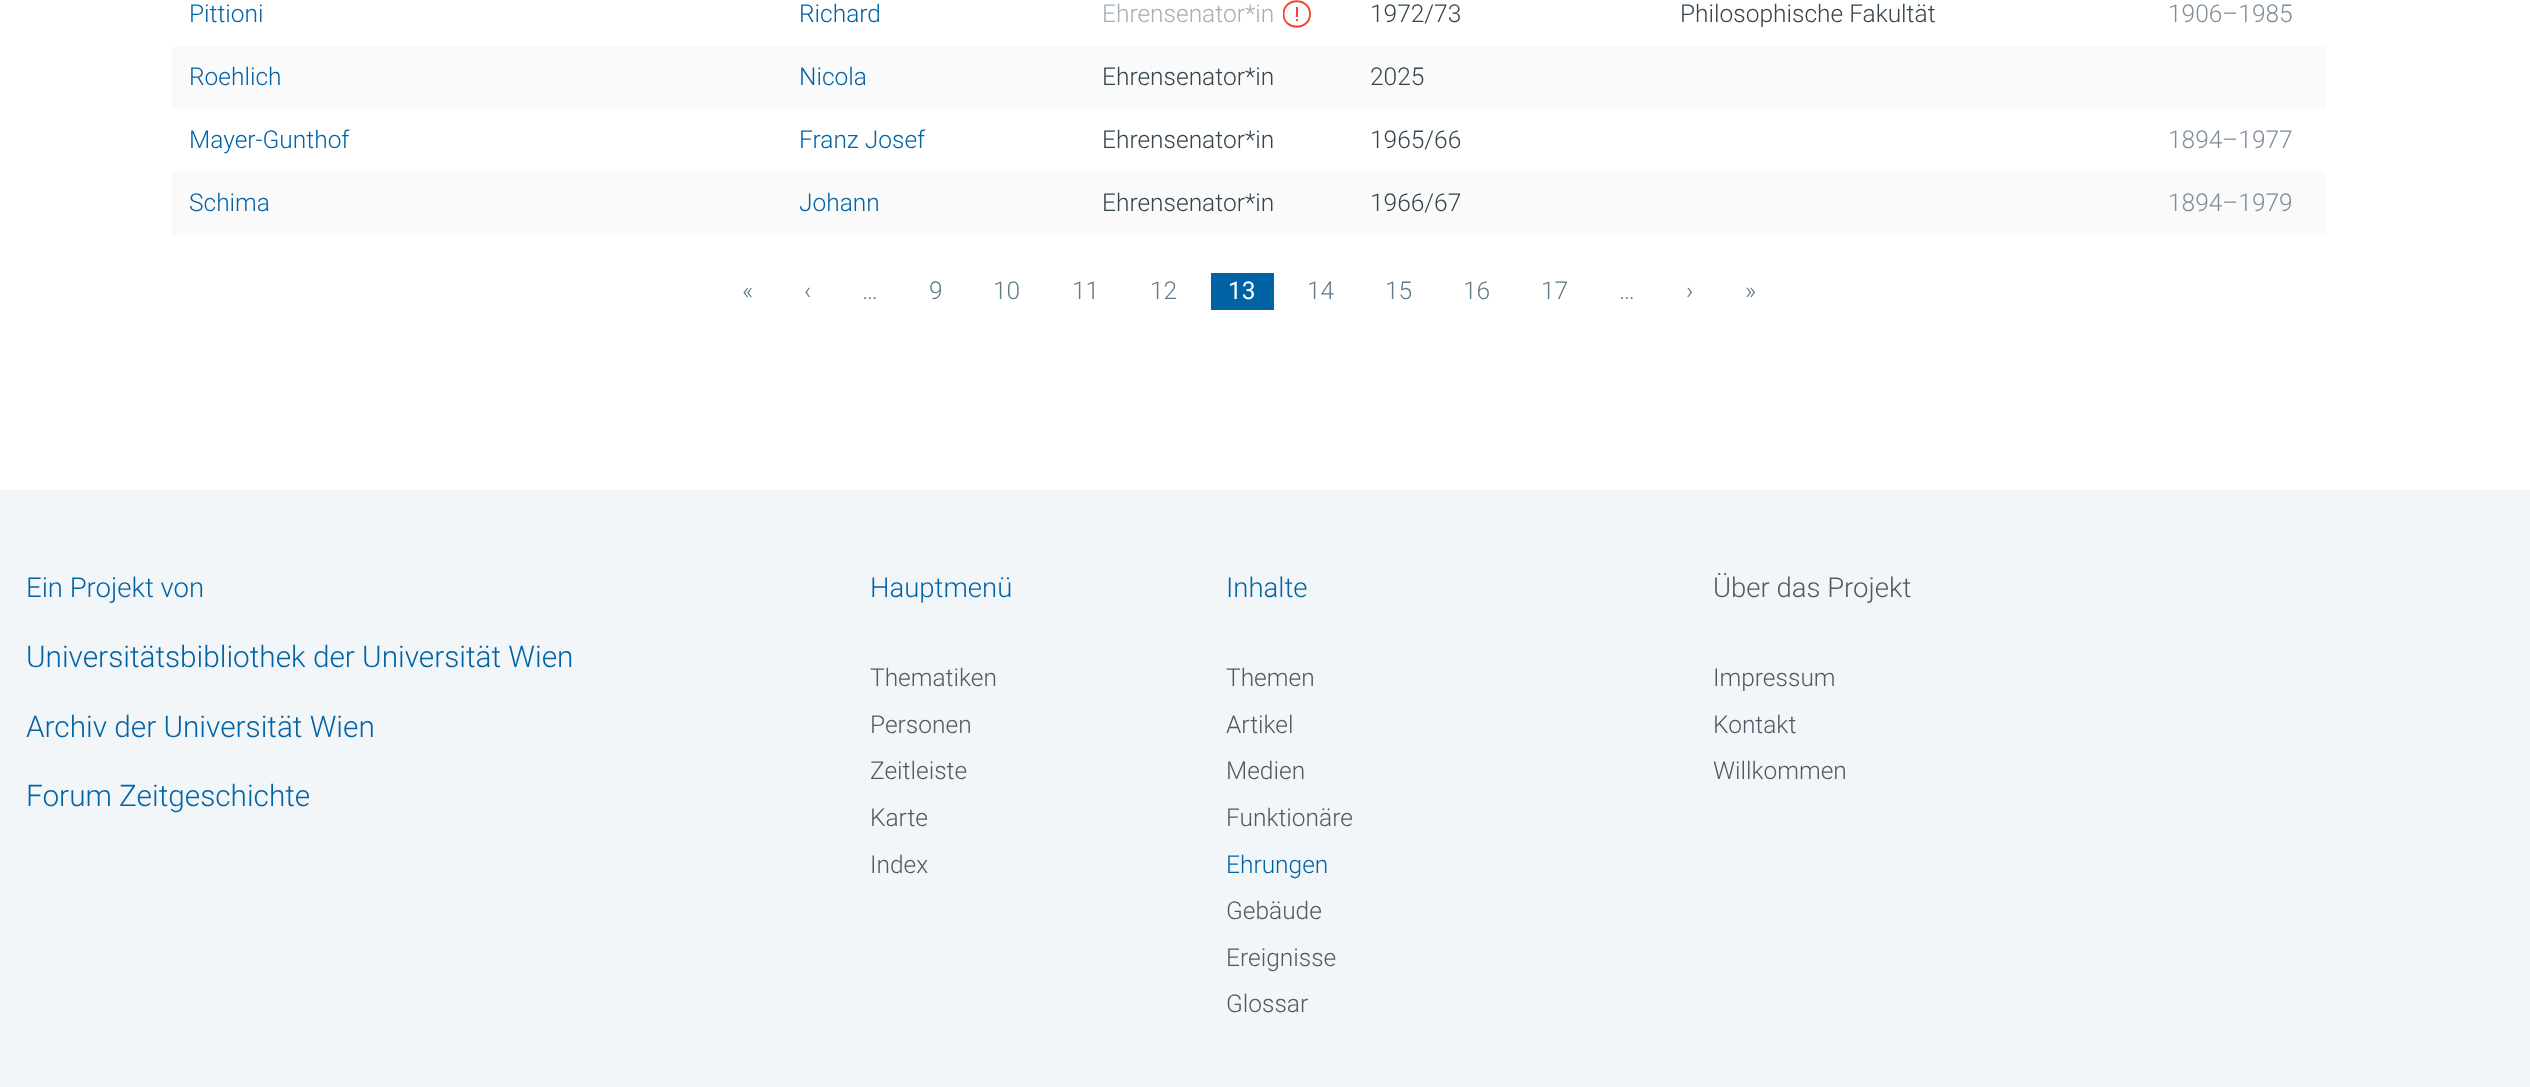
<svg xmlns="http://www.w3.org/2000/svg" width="2530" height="1087">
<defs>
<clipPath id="clip1"><rect x="1283" width="28" height="28"/></clipPath>
</defs>
<rect width="100%" height="100%" fill="#fff"/>
<text x="189" y="22" style="font-family:Roboto;font-size:24.5px;font-weight:300;fill:#0063a6">Pittioni</text>
<text x="799" y="22" style="font-family:Roboto;font-size:24.5px;font-weight:300;fill:#0063a6">Richard</text>
<text x="1102" y="22" style="font-family:Roboto;font-size:24.5px;font-weight:300;fill:#a4aeb7">Ehrensenator*in</text>
<g clip-path="url(#clip1)">
<path d="M1310 14c0 17-26.5 17-26.5 0c0-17 26.5-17 26.5 0" fill="none" stroke="#f4442e" stroke-width="1.9"/>
</g>
<rect x="1296" y="7" width="2" height="10" fill="#f4442e"/>
<rect x="1296" y="19" width="2" height="2" fill="#f4442e"/>
<text x="1370" y="22" style="font-family:Roboto;font-size:24.5px;font-weight:300;fill:#35444c">1972/73</text>
<text x="1680" y="22" style="font-family:Roboto;font-size:24.5px;font-weight:300;fill:#35444c">Philosophische Fakultät</text>
<text x="2168" y="22" style="font-family:Roboto;font-size:24.5px;font-weight:300;fill:#7f8d9a">1906–1985</text>
<rect x="172" y="46" width="2154" height="63" fill="#fafafa"/>
<text x="189" y="85" style="font-family:Roboto;font-size:24.5px;font-weight:300;fill:#0063a6">Roehlich</text>
<text x="799" y="85" style="font-family:Roboto;font-size:24.5px;font-weight:300;fill:#0063a6">Nicola</text>
<text x="1102" y="85" style="font-family:Roboto;font-size:24.5px;font-weight:300;fill:#35444c">Ehrensenator*in</text>
<text x="1370" y="85" style="font-family:Roboto;font-size:24.5px;font-weight:300;fill:#35444c">2025</text>
<text x="189" y="148" style="font-family:Roboto;font-size:24.5px;font-weight:300;fill:#0063a6">Mayer-Gunthof</text>
<text x="799" y="148" style="font-family:Roboto;font-size:24.5px;font-weight:300;fill:#0063a6">Franz Josef</text>
<text x="1102" y="148" style="font-family:Roboto;font-size:24.5px;font-weight:300;fill:#35444c">Ehrensenator*in</text>
<text x="1370" y="148" style="font-family:Roboto;font-size:24.5px;font-weight:300;fill:#35444c">1965/66</text>
<text x="2168" y="148" style="font-family:Roboto;font-size:24.5px;font-weight:300;fill:#7f8d9a">1894–1977</text>
<rect x="172" y="172" width="2154" height="63" fill="#fafafa"/>
<text x="189" y="211" style="font-family:Roboto;font-size:24.5px;font-weight:300;fill:#0063a6">Schima</text>
<text x="799" y="211" style="font-family:Roboto;font-size:24.5px;font-weight:300;fill:#0063a6">Johann</text>
<text x="1102" y="211" style="font-family:Roboto;font-size:24.5px;font-weight:300;fill:#35444c">Ehrensenator*in</text>
<text x="1370" y="211" style="font-family:Roboto;font-size:24.5px;font-weight:300;fill:#35444c">1966/67</text>
<text x="2168" y="211" style="font-family:Roboto;font-size:24.5px;font-weight:300;fill:#7f8d9a">1894–1979</text>
<text x="742" y="299" style="font-family:Roboto;font-size:24.5px;font-weight:300;fill:#5f7a88">«</text>
<text x="804" y="299" style="font-family:Roboto;font-size:24.5px;font-weight:300;fill:#5f7a88">‹</text>
<text x="929" y="299" style="font-family:Roboto;font-size:24.5px;font-weight:300;fill:#5f7a88">9</text>
<text x="993" y="299" style="font-family:Roboto;font-size:24.5px;font-weight:300;fill:#5f7a88">10</text>
<text x="1072" y="299" style="font-family:Roboto;font-size:24.5px;font-weight:300;fill:#5f7a88">11</text>
<text x="1150" y="299" style="font-family:Roboto;font-size:24.5px;font-weight:300;fill:#5f7a88">12</text>
<rect x="1211" y="273" width="63" height="37" fill="#0063a6"/>
<text x="1228" y="299" style="font-family:Roboto;font-size:24.5px;fill:#fff">13</text>
<text x="1307" y="299" style="font-family:Roboto;font-size:24.5px;font-weight:300;fill:#5f7a88">14</text>
<text x="1385" y="299" style="font-family:Roboto;font-size:24.5px;font-weight:300;fill:#5f7a88">15</text>
<text x="1463" y="299" style="font-family:Roboto;font-size:24.5px;font-weight:300;fill:#5f7a88">16</text>
<text x="1541" y="299" style="font-family:Roboto;font-size:24.5px;font-weight:300;fill:#5f7a88">17</text>
<text x="1686" y="299" style="font-family:Roboto;font-size:24.5px;font-weight:300;fill:#5f7a88">›</text>
<text x="1745" y="299" style="font-family:Roboto;font-size:24.5px;font-weight:300;fill:#5f7a88">»</text>
<text x="862" y="299" style="font-family:Roboto;font-size:24.5px;font-weight:300;fill:#5f7a88">…</text>
<text x="1619" y="299" style="font-family:Roboto;font-size:24.5px;font-weight:300;fill:#5f7a88">…</text>
<rect y="490" width="2530" height="597" fill="#f3f6f8"/>
<text x="26" y="597" style="font-family:Roboto;font-size:27.5px;font-weight:300;fill:#0063a6">Ein Projekt von</text>
<text x="26" y="667" style="font-family:Roboto;font-size:29.75px;font-weight:300;fill:#0063a6">Universitätsbibliothek der Universität Wien</text>
<text x="26" y="737" style="font-family:Roboto;font-size:29.75px;font-weight:300;fill:#0063a6">Archiv der Universität Wien</text>
<text x="26" y="806" style="font-family:Roboto;font-size:29.75px;font-weight:300;fill:#0063a6">Forum Zeitgeschichte</text>
<text x="870" y="597" style="font-family:Roboto;font-size:27.5px;font-weight:300;fill:#0063a6">Hauptmenü</text>
<text x="870" y="686" style="font-family:Roboto;font-size:24.5px;font-weight:300;fill:#4f5a64">Thematiken</text>
<text x="870" y="733" style="font-family:Roboto;font-size:24.5px;font-weight:300;fill:#4f5a64">Personen</text>
<text x="870" y="779" style="font-family:Roboto;font-size:24.5px;font-weight:300;fill:#4f5a64">Zeitleiste</text>
<text x="870" y="826" style="font-family:Roboto;font-size:24.5px;font-weight:300;fill:#4f5a64">Karte</text>
<text x="870" y="873" style="font-family:Roboto;font-size:24.5px;font-weight:300;fill:#4f5a64">Index</text>
<text x="1226" y="597" style="font-family:Roboto;font-size:27.5px;font-weight:300;fill:#0063a6">Inhalte</text>
<text x="1226" y="686" style="font-family:Roboto;font-size:24.5px;font-weight:300;fill:#4f5a64">Themen</text>
<text x="1226" y="733" style="font-family:Roboto;font-size:24.5px;font-weight:300;fill:#4f5a64">Artikel</text>
<text x="1226" y="779" style="font-family:Roboto;font-size:24.5px;font-weight:300;fill:#4f5a64">Medien</text>
<text x="1226" y="826" style="font-family:Roboto;font-size:24.5px;font-weight:300;fill:#4f5a64">Funktionäre</text>
<text x="1226" y="873" style="font-family:Roboto;font-size:24.5px;font-weight:300;fill:#0063a6">Ehrungen</text>
<text x="1226" y="919" style="font-family:Roboto;font-size:24.5px;font-weight:300;fill:#4f5a64">Gebäude</text>
<text x="1226" y="966" style="font-family:Roboto;font-size:24.5px;font-weight:300;fill:#4f5a64">Ereignisse</text>
<text x="1226" y="1012" style="font-family:Roboto;font-size:24.5px;font-weight:300;fill:#4f5a64">Glossar</text>
<text x="1713" y="597" style="font-family:Roboto;font-size:27.5px;font-weight:300;fill:#4f5a64">Über das Projekt</text>
<text x="1713" y="686" style="font-family:Roboto;font-size:24.5px;font-weight:300;fill:#4f5a64">Impressum</text>
<text x="1713" y="733" style="font-family:Roboto;font-size:24.5px;font-weight:300;fill:#4f5a64">Kontakt</text>
<text x="1713" y="779" style="font-family:Roboto;font-size:24.5px;font-weight:300;fill:#4f5a64">Willkommen</text>
</svg>
